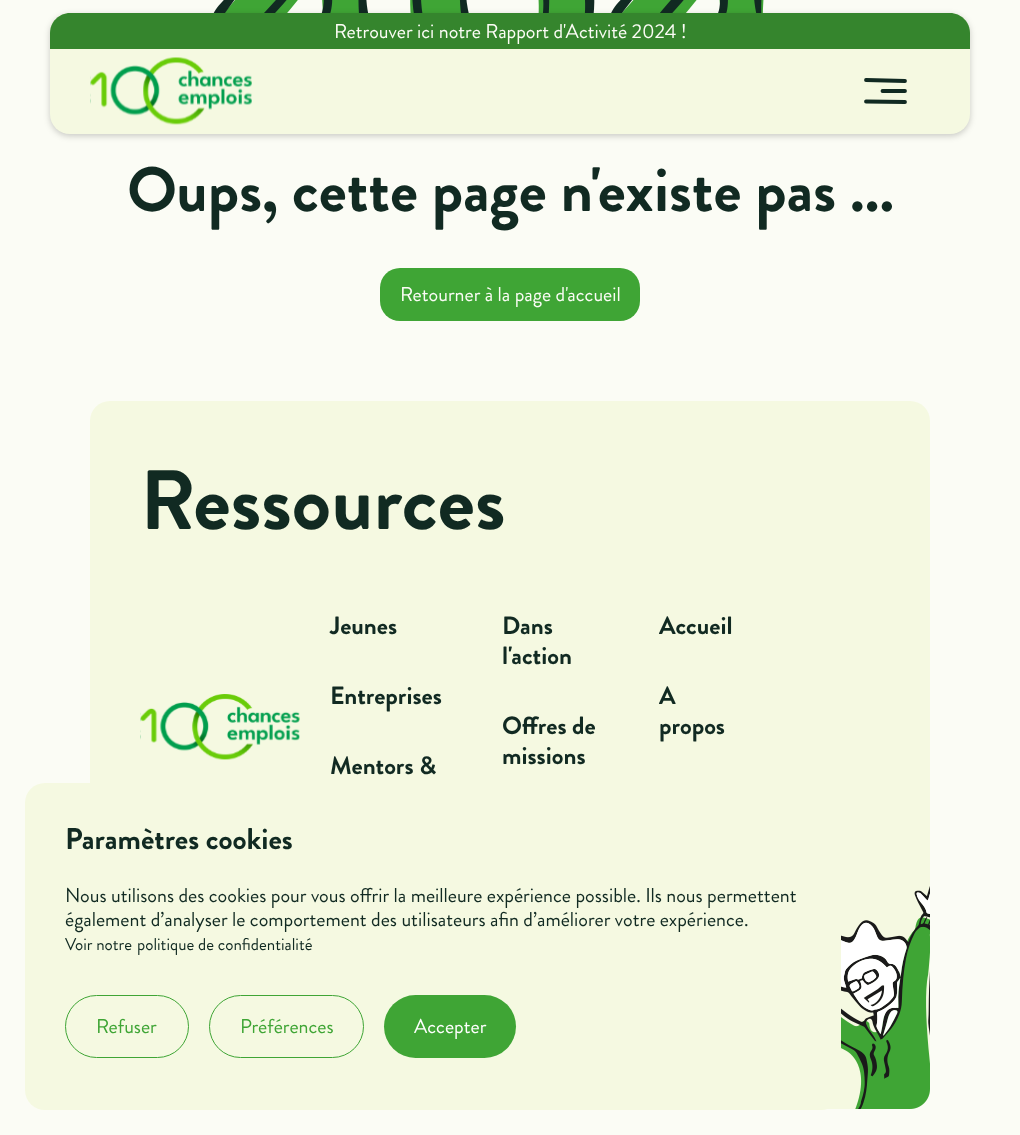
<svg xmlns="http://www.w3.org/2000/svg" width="1020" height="1135">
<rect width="100%" height="100%" fill="#fbfcf5"/>
<image x="213" y="0" width="551" height="13" href="media/2.png"/>
<rect x="50" y="15" width="920" height="121" rx="20" fill="#00000033" filter="blur(3px)"/>
<rect x="50" y="13" width="920" height="121" rx="20" fill="#f5f9e1"/>
<path d="M70 13h880c11 0 20 9 20 20v16h-920v-16c0-11 9-20 20-20z" fill="#35852d"/>
<text x="334" y="38" style="font-family:Brandon Grotesque;font-size:20px;fill:#fbfcf5">Retrouver ici notre Rapport d'Activité 2024 !</text>
<image x="90" y="57" width="162" height="68" href="media/1.png"/>
<path d="M866 80l39 1m-22.5 10h22.5m-39 10.5l39 .5" fill="none" stroke="#112a22" stroke-width="3.8" stroke-linecap="round"/>
<text x="127" y="211" style="font-family:Brandon Grotesque;font-size:62.7px;font-weight:bold;fill:#112a22">Oups, cette page n'existe pas ...</text>
<rect x="380" y="268" width="260" height="53" rx="20" fill="#3fa535"/>
<text x="400" y="301" style="font-family:Brandon Grotesque;font-size:20px;fill:#fbfcf5">Retourner à la page d'accueil</text>
<rect x="90" y="401" width="840" height="708" rx="20" fill="#f5f9e1"/>
<text x="140" y="529" style="font-family:Brandon Grotesque;font-size:84px;font-weight:bold;fill:#112a22">Ressources</text>
<image x="140" y="694" width="160" height="66" href="media/3.png"/>
<text x="330" y="634" style="font-family:Brandon Grotesque;font-size:25px;font-weight:bold;fill:#112a22">Jeunes</text>
<text x="330" y="704" style="font-family:Brandon Grotesque;font-size:25px;font-weight:bold;fill:#112a22">Entreprises</text>
<text x="330" y="774" style="font-family:Brandon Grotesque;font-size:25px;font-weight:bold;fill:#112a22">Mentors &amp;</text>
<text x="502" y="634" style="font-family:Brandon Grotesque;font-size:25px;font-weight:bold;fill:#112a22">Dans</text>
<text x="502" y="664" style="font-family:Brandon Grotesque;font-size:25px;font-weight:bold;fill:#112a22">l'action</text>
<text x="502" y="734" style="font-family:Brandon Grotesque;font-size:25px;font-weight:bold;fill:#112a22">Offres de</text>
<text x="502" y="764" style="font-family:Brandon Grotesque;font-size:25px;font-weight:bold;fill:#112a22">missions</text>
<text x="659" y="634" style="font-family:Brandon Grotesque;font-size:25px;font-weight:bold;fill:#112a22">Accueil</text>
<text x="659" y="704" style="font-family:Brandon Grotesque;font-size:25px;font-weight:bold;fill:#112a22">A</text>
<text x="659" y="734" style="font-family:Brandon Grotesque;font-size:25px;font-weight:bold;fill:#112a22">propos</text>
<image x="841" y="886" width="89" height="223" href="media/4.png"/>
<rect x="25" y="783" width="816" height="327" rx="20" fill="#f5f9e1"/>
<text x="65" y="849" style="font-family:Brandon Grotesque;font-size:30px;font-weight:bold;fill:#112a22">Paramètres cookies</text>
<text x="65" y="902" style="font-family:Brandon Grotesque;font-size:20px;fill:#112a22">Nous utilisons des cookies pour vous offrir la meilleure expérience possible. Ils nous permettent</text>
<text x="65" y="926" style="font-family:Brandon Grotesque;font-size:20px;fill:#112a22">également d’analyser le comportement des utilisateurs afin d’améliorer votre expérience.</text>
<text x="65" y="950" style="font-family:Brandon Grotesque;font-size:17px;fill:#112a22">Voir notre</text>
<text x="137" y="950" style="font-family:Brandon Grotesque;font-size:17px;fill:#112a22">politique de confidentialité</text>
<rect x="65.5" y="995.5" width="123" height="62" rx="31" fill="none" stroke="#3fa535"/>
<text x="96" y="1033" style="font-family:Brandon Grotesque;font-size:20px;fill:#3fa535">Refuser</text>
<rect x="209.5" y="995.5" width="154" height="62" rx="31" fill="none" stroke="#3fa535"/>
<text x="240" y="1033" style="font-family:Brandon Grotesque;font-size:20px;fill:#3fa535">Préférences</text>
<rect x="384" y="995" width="132" height="63" rx="31.5" fill="#3fa535"/>
<text x="414" y="1033" style="font-family:Brandon Grotesque;font-size:20px;fill:#fff">Accepter</text>
</svg>
